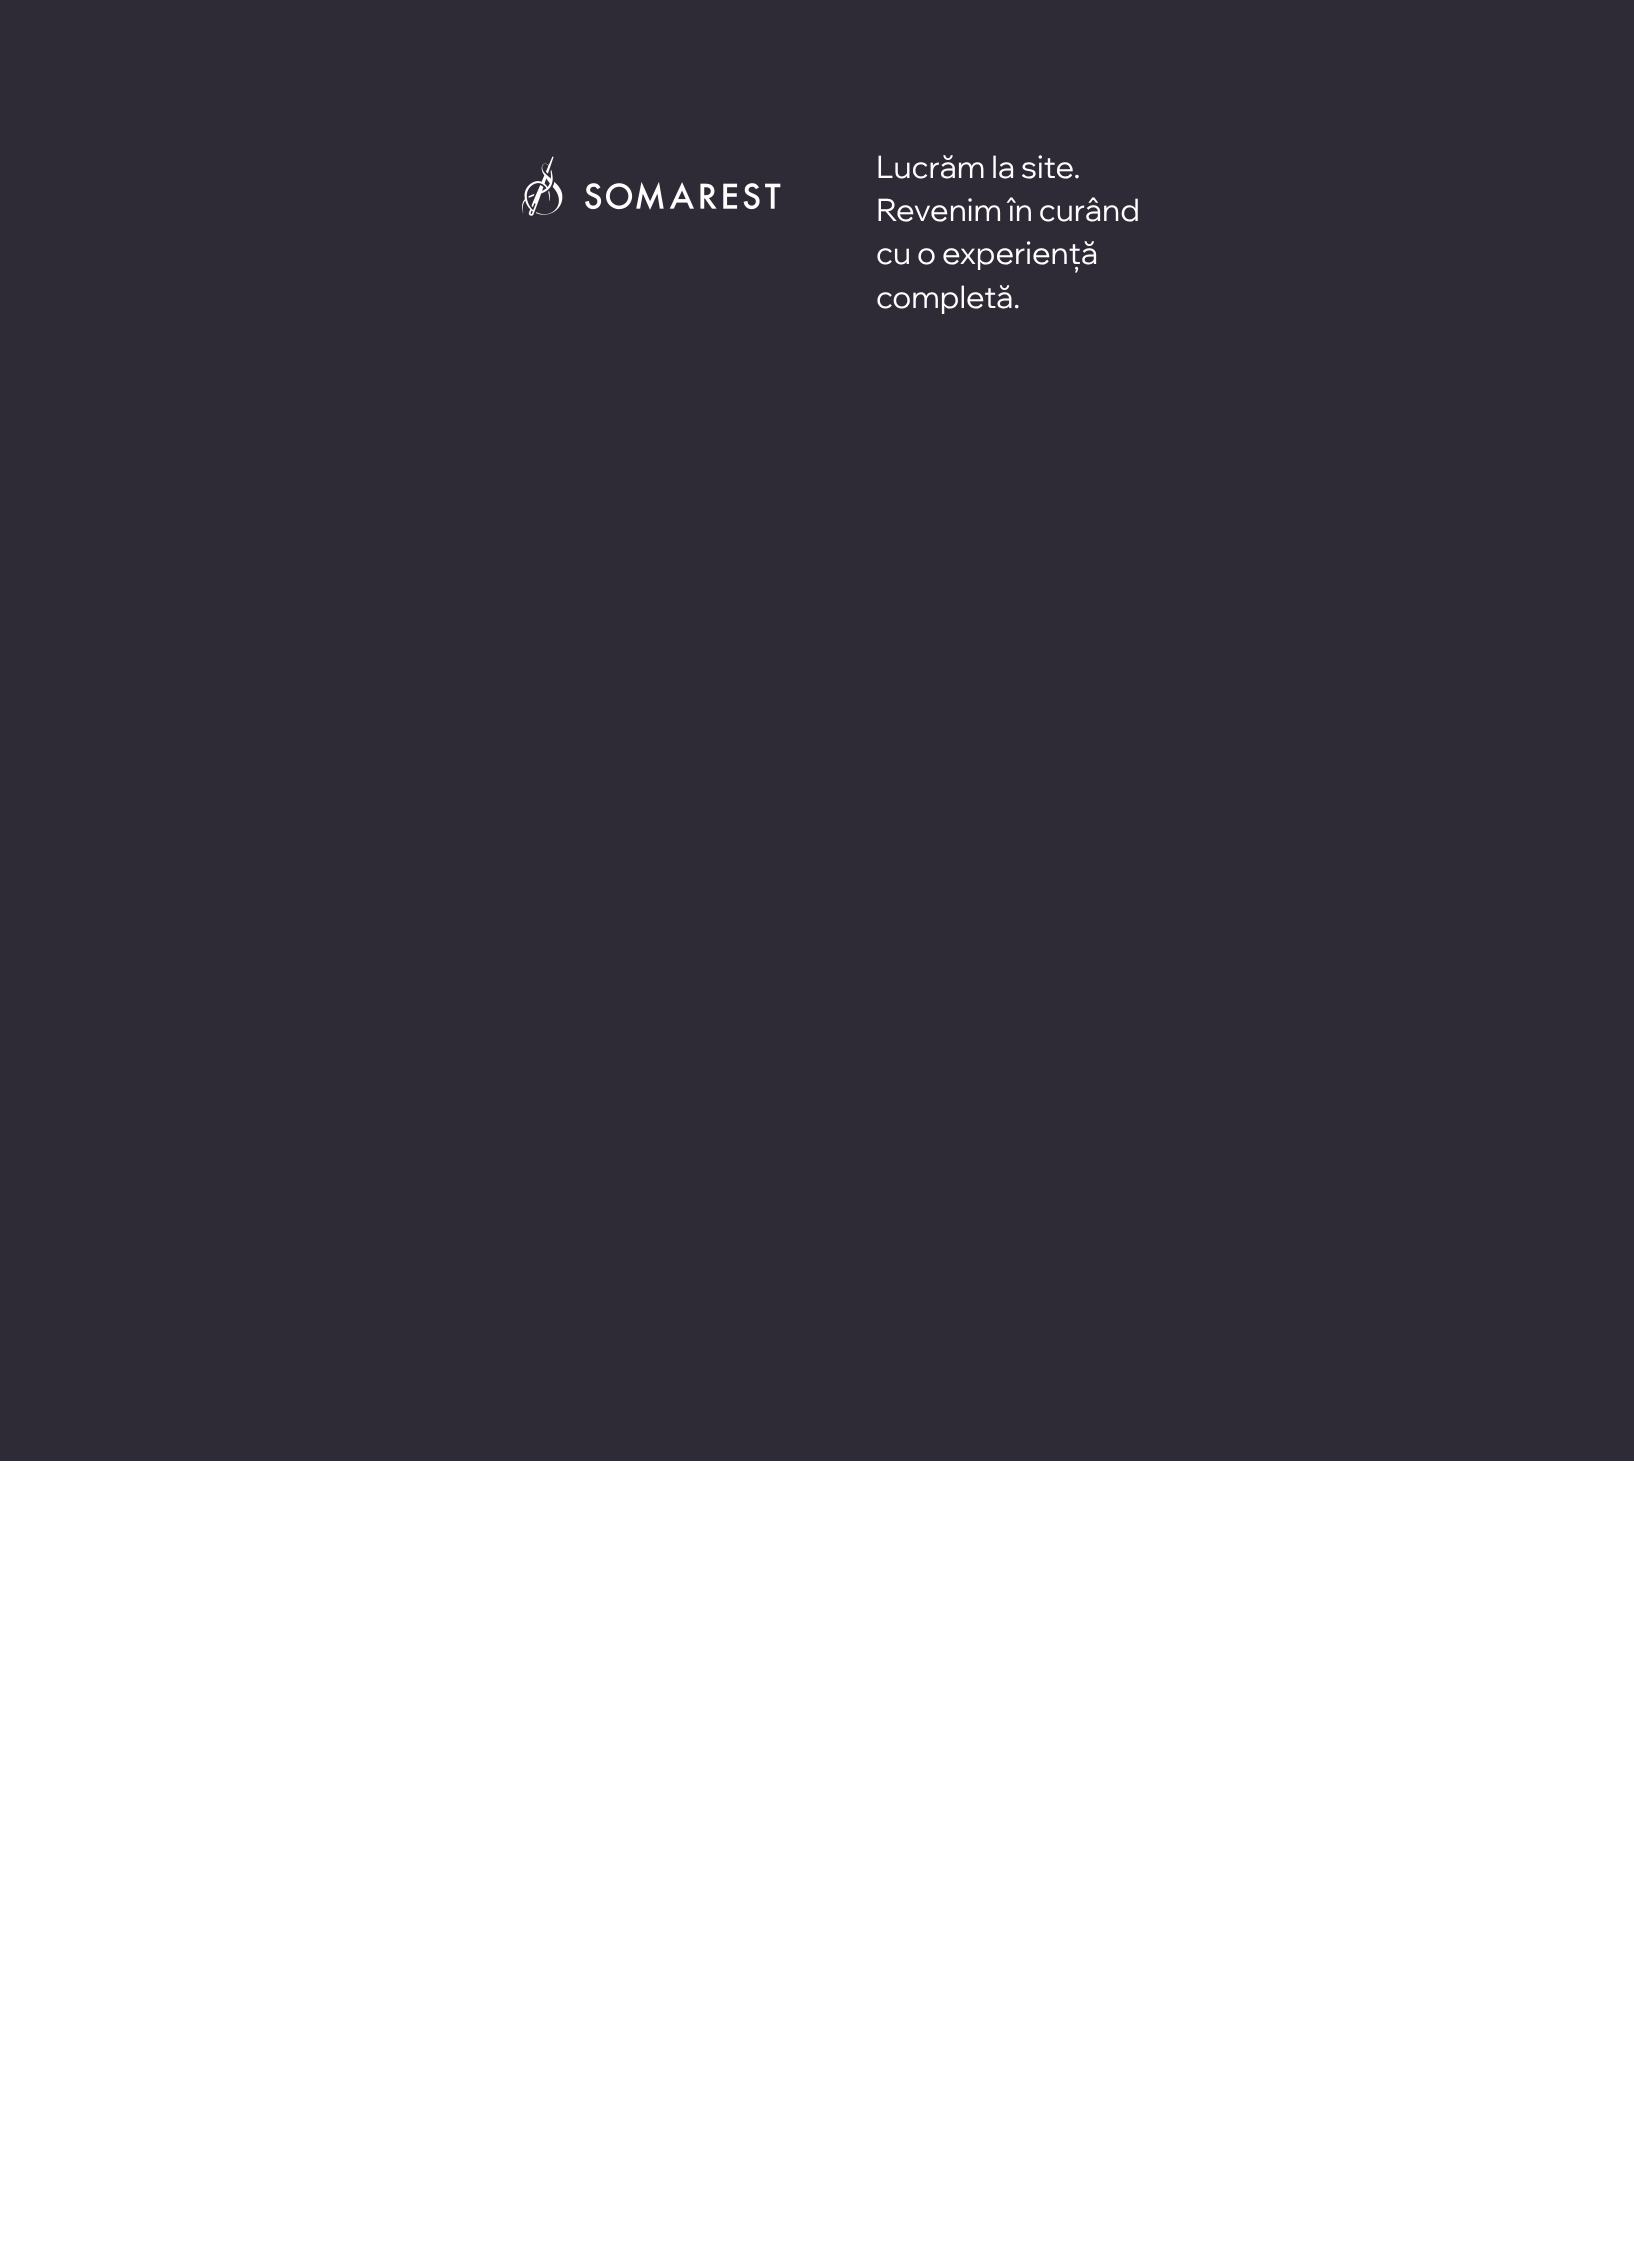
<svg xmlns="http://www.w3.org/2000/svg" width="1634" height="2254">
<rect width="100%" height="100%" fill="#fff"/>
<rect width="1634" height="1461" fill="#2f2b36"/>
<image x="522" y="156" width="259" height="60" href="media/1.png"/>
<text x="876" y="178" style="font-family:Wix Madefor Display;font-size:31px;fill:#fff">Lucrăm la site.</text>
<text x="876" y="221" style="font-family:Wix Madefor Display;font-size:31px;fill:#fff">Revenim în curând</text>
<text x="876" y="264" style="font-family:Wix Madefor Display;font-size:31px;fill:#fff">cu o experiență</text>
<text x="876" y="308" style="font-family:Wix Madefor Display;font-size:31px;fill:#fff">completă.</text>
</svg>
